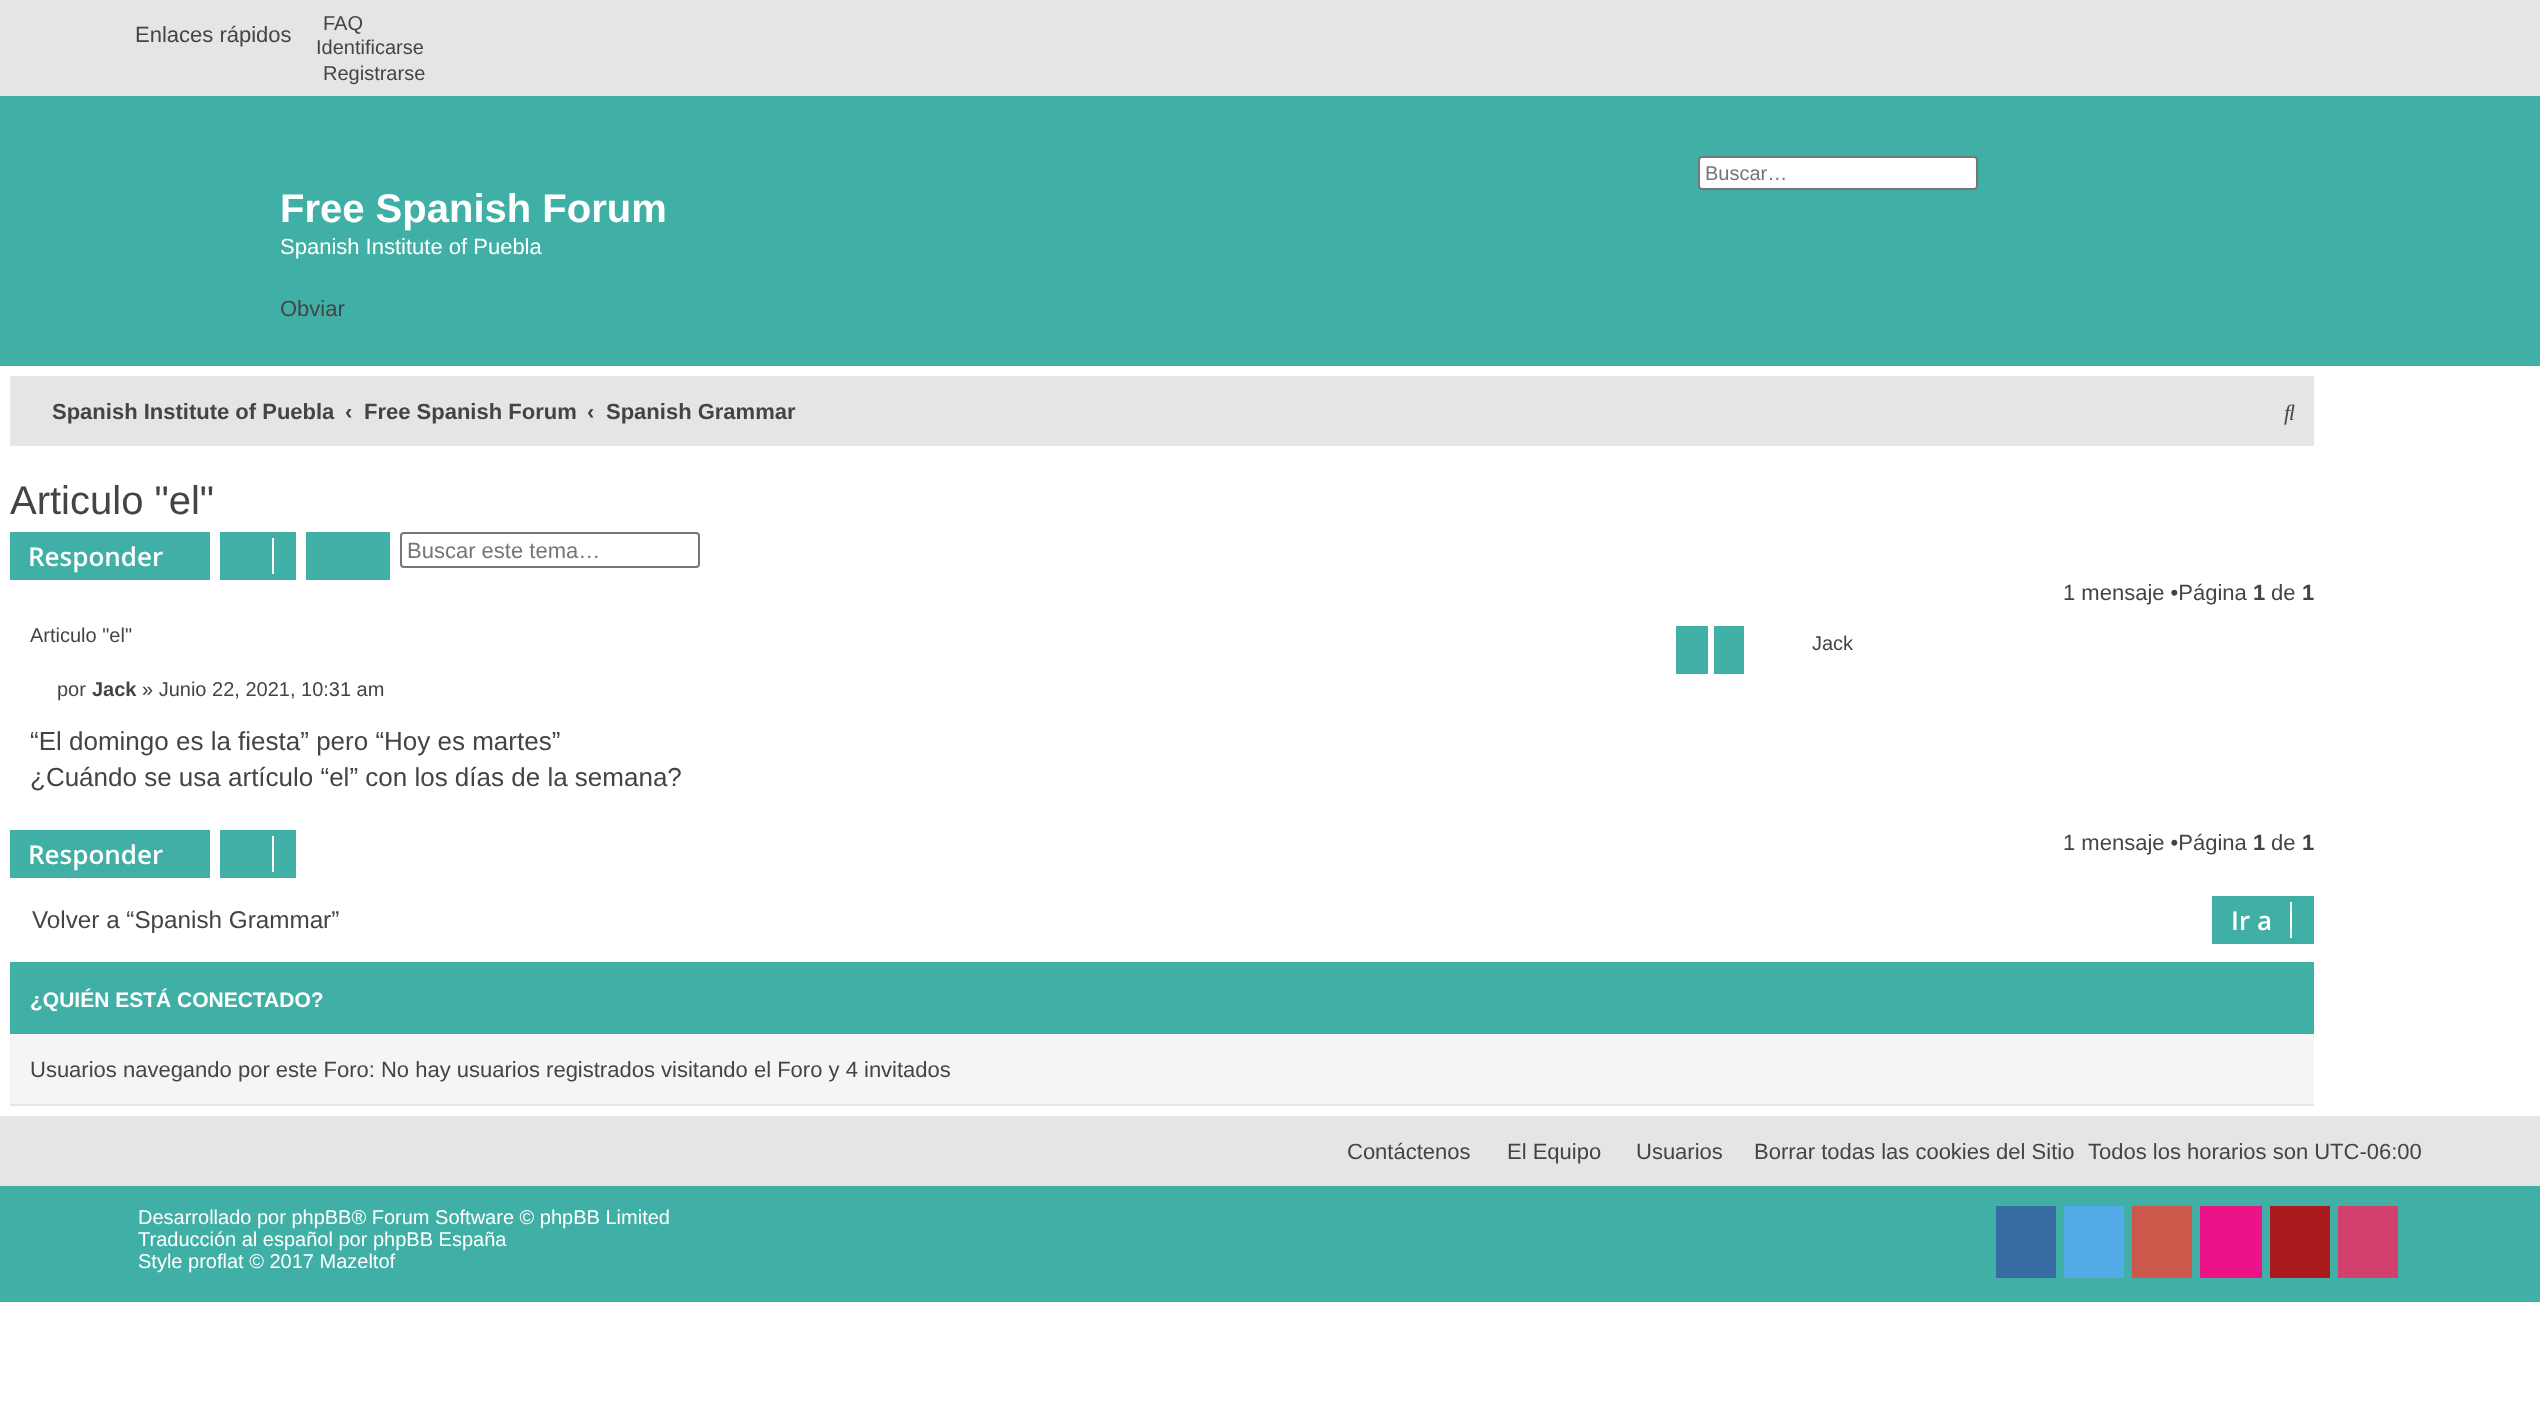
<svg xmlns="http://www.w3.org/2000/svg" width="2540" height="1412">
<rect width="100%" height="100%" fill="#fff"/>
<rect width="2540" height="96" fill="#e5e5e5"/>
<text x="135" y="42" style="font-family:Liberation Sans;font-size:22px;fill:#444">Enlaces rápidos</text>
<text x="323" y="30" style="font-family:Liberation Sans;font-size:20px;fill:#444">FAQ</text>
<text x="316" y="54" style="font-family:Liberation Sans;font-size:20px;fill:#444">Identificarse</text>
<text x="323" y="80" style="font-family:Liberation Sans;font-size:20px;fill:#444">Registrarse</text>
<rect y="96" width="2540" height="270" fill="#40b0a6"/>
<rect x="1699" y="157" width="278" height="32" rx="3" fill="#fff" stroke="#767676" stroke-width="2"/>
<text x="1705" y="180" style="font-family:Liberation Sans;font-size:20px;fill:#757575">Buscar…</text>
<text x="280" y="222" style="font-family:Liberation Sans;font-size:40px;font-weight:bold;fill:#fff">Free Spanish Forum</text>
<text x="280" y="254" style="font-family:Liberation Sans;font-size:22px;fill:#fff">Spanish Institute of Puebla</text>
<text x="280" y="316" style="font-family:Liberation Sans;font-size:22px;fill:#444">Obviar</text>
<rect x="10" y="376" width="2304" height="70" fill="#e5e5e5"/>
<text x="52" y="419" style="font-family:Liberation Sans;font-size:22px;font-weight:bold;fill:#444">Spanish Institute of Puebla</text>
<text x="345" y="419" style="font-family:Liberation Sans;font-size:22px;font-weight:bold;fill:#444">‹</text>
<text x="364" y="419" style="font-family:Liberation Sans;font-size:22px;font-weight:bold;fill:#444">Free Spanish Forum</text>
<text x="587" y="419" style="font-family:Liberation Sans;font-size:22px;font-weight:bold;fill:#444">‹</text>
<text x="606" y="419" style="font-family:Liberation Sans;font-size:22px;font-weight:bold;fill:#444">Spanish Grammar</text>
<image x="2284" y="404" width="11" height="21" href="media/1.png"/>
<text x="10" y="514" style="font-family:Liberation Sans;font-size:40px;fill:#444">Articulo "el"</text>
<rect x="10" y="532" width="200" height="48" fill="#40b0a6"/>
<text x="28" y="566" style="font-family:Open Sans;font-size:26px;font-weight:600;fill:#fff">Responder</text>
<rect x="220" y="532" width="76" height="48" fill="#40b0a6"/>
<rect x="272" y="538" width="2" height="36" fill="#fff"/>
<rect x="306" y="532" width="40" height="48" fill="#40b0a6"/>
<rect x="346" y="534" width="42" height="44" fill="#40b0a6"/>
<rect x="346" y="532" width="44" height="2" fill="#40b0a6"/>
<rect x="388" y="532" width="2" height="48" fill="#40b0a6"/>
<rect x="346" y="578" width="44" height="2" fill="#40b0a6"/>
<rect x="401" y="533" width="298" height="34" rx="3" fill="none" stroke="#767676" stroke-width="2"/>
<text x="407" y="558" style="font-family:Liberation Sans;font-size:22px;fill:#757575">Buscar este tema…</text>
<text x="2063" y="600" style="font-family:Liberation Sans;font-size:22px;fill:#444">1 mensaje •Página</text>
<text x="2253" y="600" style="font-family:Liberation Sans;font-size:22px;font-weight:bold;fill:#444">1</text>
<text x="2271" y="600" style="font-family:Liberation Sans;font-size:22px;fill:#444">de</text>
<text x="2302" y="600" style="font-family:Liberation Sans;font-size:22px;font-weight:bold;fill:#444">1</text>
<text x="30" y="642" style="font-family:Liberation Sans;font-size:20px;fill:#444">Articulo "el"</text>
<rect x="1676" y="626" width="32" height="48" fill="#40b0a6"/>
<rect x="1714" y="626" width="30" height="48" fill="#40b0a6"/>
<text x="57" y="696" style="font-family:Liberation Sans;font-size:20px;fill:#444">por</text>
<text x="92" y="696" style="font-family:Liberation Sans;font-size:20px;font-weight:bold;fill:#444">Jack</text>
<text x="142" y="696" style="font-family:Liberation Sans;font-size:20px;fill:#444">» Junio 22, 2021, 10:31 am</text>
<text x="30" y="750" style="font-family:Liberation Sans;font-size:26px;fill:#444">“El domingo es la fiesta” pero “Hoy es martes”</text>
<text x="30" y="786" style="font-family:Liberation Sans;font-size:26px;fill:#444">¿Cuándo se usa artículo “el” con los días de la semana?</text>
<text x="1812" y="650" style="font-family:Liberation Sans;font-size:20px;fill:#444">Jack</text>
<rect x="10" y="830" width="200" height="48" fill="#40b0a6"/>
<text x="28" y="864" style="font-family:Open Sans;font-size:26px;font-weight:600;fill:#fff">Responder</text>
<rect x="220" y="830" width="76" height="48" fill="#40b0a6"/>
<rect x="272" y="836" width="2" height="36" fill="#fff"/>
<text x="2063" y="850" style="font-family:Liberation Sans;font-size:22px;fill:#444">1 mensaje •Página</text>
<text x="2253" y="850" style="font-family:Liberation Sans;font-size:22px;font-weight:bold;fill:#444">1</text>
<text x="2271" y="850" style="font-family:Liberation Sans;font-size:22px;fill:#444">de</text>
<text x="2302" y="850" style="font-family:Liberation Sans;font-size:22px;font-weight:bold;fill:#444">1</text>
<text x="32" y="928" style="font-family:Liberation Sans;font-size:24.25px;fill:#444">Volver a “Spanish Grammar”</text>
<rect x="2212" y="896" width="102" height="48" fill="#40b0a6"/>
<text x="2231" y="930" style="font-family:Open Sans;font-size:26px;font-weight:600;fill:#fff">Ir a</text>
<rect x="2290" y="902" width="2" height="36" fill="#fff"/>
<rect x="10" y="962" width="2304" height="72" fill="#40b0a6"/>
<text x="30" y="1007" style="font-family:Liberation Sans;font-size:21px;font-weight:bold;fill:#fff">¿QUIÉN ESTÁ CONECTADO?</text>
<rect x="10" y="1034" width="2304" height="70" fill="#f5f5f5"/>
<rect x="10" y="1104" width="2304" height="2" fill="#e5e5e5"/>
<text x="30" y="1077" style="font-family:Liberation Sans;font-size:22px;fill:#444">Usuarios navegando por este Foro: No hay usuarios registrados visitando el Foro y 4 invitados</text>
<rect y="1116" width="2540" height="70" fill="#e5e5e5"/>
<text x="1347" y="1159" style="font-family:Liberation Sans;font-size:22px;fill:#444">Contáctenos</text>
<text x="1507" y="1159" style="font-family:Liberation Sans;font-size:22px;fill:#444">El Equipo</text>
<text x="1636" y="1159" style="font-family:Liberation Sans;font-size:22px;fill:#444">Usuarios</text>
<text x="1754" y="1159" style="font-family:Liberation Sans;font-size:22px;fill:#444">Borrar todas las cookies del Sitio</text>
<text x="2088" y="1159" style="font-family:Liberation Sans;font-size:22px;fill:#444">Todos los horarios son UTC-06:00</text>
<rect y="1186" width="2540" height="116" fill="#40b0a6"/>
<text x="138" y="1224" style="font-family:Liberation Sans;font-size:20px;fill:#fff">Desarrollado por phpBB® Forum Software © phpBB Limited</text>
<text x="138" y="1246" style="font-family:Liberation Sans;font-size:20px;fill:#fff">Traducción al español por phpBB España</text>
<text x="138" y="1268" style="font-family:Liberation Sans;font-size:20px;fill:#fff">Style proflat © 2017 Mazeltof</text>
<rect x="1996" y="1206" width="60" height="72" fill="#386da3"/>
<rect x="2064" y="1206" width="60" height="72" fill="#53ace7"/>
<rect x="2132" y="1206" width="60" height="72" fill="#cc584b"/>
<rect x="2200" y="1206" width="62" height="72" fill="#ec1287"/>
<rect x="2270" y="1206" width="60" height="72" fill="#aa191b"/>
<rect x="2338" y="1206" width="60" height="72" fill="#d2406d"/>
</svg>
